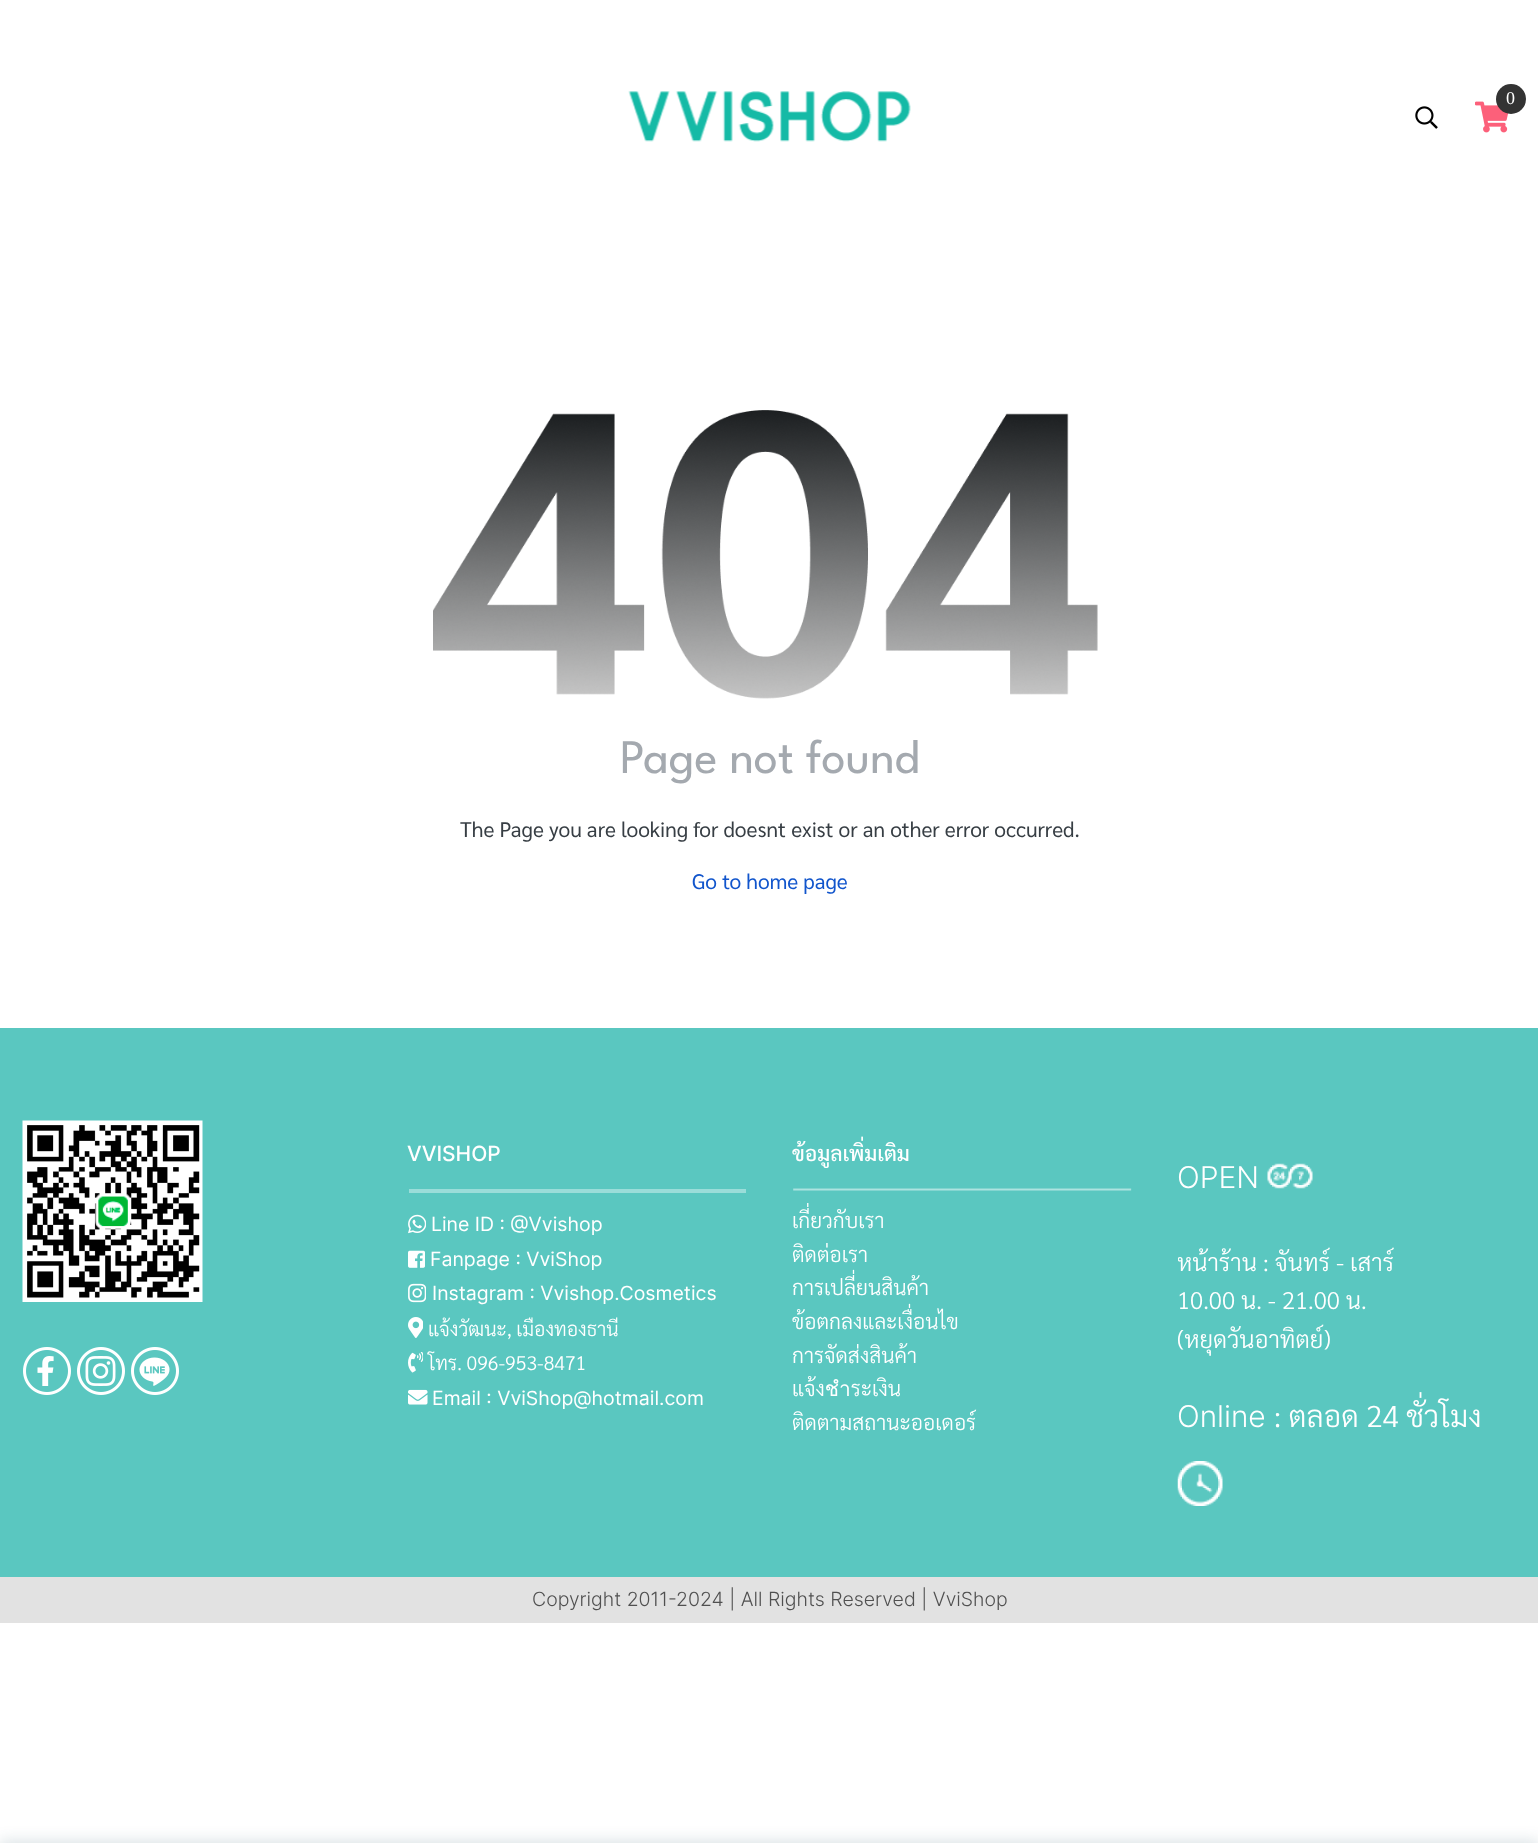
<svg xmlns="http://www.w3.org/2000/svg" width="1538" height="1843">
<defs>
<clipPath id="clip1"><rect x="792" y="1121" width="341" height="333"/></clipPath>
<clipPath id="clip2"><rect x="1178" y="1121" width="339" height="408"/></clipPath>
</defs>
<rect width="100%" height="100%" fill="#fff"/>
<image x="628" y="91" width="283" height="51" href="media/1.png"/>
<image x="1475" y="101" width="34" height="32" href="media/2.png"/>
<circle cx="1511" cy="99" r="15" fill="#333"/>
<text x="1506" y="104" style="font-family:Liberation Serif;font-size:18px;fill:#fff">0</text>
<image x="1415" y="106" width="23" height="23" href="media/3.png"/>
<image x="433" y="410" width="665" height="289" href="media/4.png"/>
<text x="620" y="773" style="font-family:League Spartan;font-size:48px;fill:#a4a9af">Page not found</text>
<text x="460" y="837" style="font-family:Sarabun;font-size:21px;fill:#373e44">The Page you are looking for doesnt exist or an other error occurred.</text>
<text x="692" y="889" style="font-family:Sarabun;font-size:21px;fill:#15c">Go to home page</text>
<rect y="1028" width="1538" height="549" fill="#5ac7c0"/>
<image x="22" y="1120" width="181" height="182" href="media/5.png"/>
<image x="23" y="1347" width="48" height="48" href="media/6.png"/>
<image x="77" y="1347" width="48" height="48" href="media/7.png"/>
<image x="131" y="1347" width="48" height="48" href="media/8.png"/>
<text x="407" y="1161" style="font-family:Inter;font-size:21px;font-weight:500;fill:#fff">VVISHOP</text>
<rect x="409" y="1189" width="337" height="4" fill="#9addd9"/>
<image x="408" y="1214" width="18" height="20" href="media/9.png"/>
<text x="431" y="1231" style="font-family:Inter;font-size:19.5px;fill:#fff">Line ID : @Vvishop</text>
<image x="408" y="1250" width="17" height="18" href="media/10.png"/>
<text x="430" y="1266" style="font-family:Inter;font-size:19.5px;fill:#fff">Fanpage : VviShop</text>
<image x="408" y="1283" width="18" height="20" href="media/11.png"/>
<text x="432" y="1300" style="font-family:Inter;font-size:19.5px;fill:#fff">Instagram : Vvishop.Cosmetics</text>
<image x="408" y="1317" width="15" height="21" href="media/12.png"/>
<text x="428" y="1336" style="font-family:Sarabun;font-size:19.5px;font-weight:300;fill:#fff">แจ้งวัฒนะ, เมืองทองธานี</text>
<image x="408" y="1352" width="15" height="21" href="media/13.png"/>
<text x="428" y="1370" style="font-family:Sarabun;font-size:19.5px;font-weight:300;fill:#fff">โทร. 096-953-8471</text>
<image x="408" y="1389" width="20" height="16" href="media/14.png"/>
<text x="432" y="1405" style="font-family:Inter;font-size:19.5px;fill:#fff">Email : VviShop@hotmail.com</text>
<g clip-path="url(#clip1)">
<text x="792" y="1161" style="font-family:Sarabun;font-size:21px;font-weight:500;fill:#fff">ข้อมูลเพิ่มเติม</text>
</g>
<image x="793" y="1188" width="339" height="3" href="media/15.png"/>
<g clip-path="url(#clip1)">
<text x="792" y="1228" style="font-family:Sarabun;font-size:21px;font-weight:300;fill:#fff">เกี่ยวกับเรา</text>
<text x="792" y="1262" style="font-family:Sarabun;font-size:21px;font-weight:300;fill:#fff">ติดต่อเรา</text>
</g>
<text x="792" y="1295" style="font-family:Sarabun;font-size:21px;font-weight:300;fill:#fff">การเปลี่ยนสินค้า</text>
<g clip-path="url(#clip1)">
<text x="792" y="1329" style="font-family:Sarabun;font-size:21px;font-weight:300;fill:#fff">ข้อตกลงและเงื่อนไข</text>
</g>
<text x="792" y="1363" style="font-family:Sarabun;font-size:21px;font-weight:300;fill:#fff">การจัดส่งสินค้า</text>
<text x="792" y="1396" style="font-family:Sarabun;font-size:21px;font-weight:300;fill:#fff">แจ้งชำระเงิน</text>
<g clip-path="url(#clip1)">
<text x="792" y="1430" style="font-family:Sarabun;font-size:21px;font-weight:300;fill:#fff">ติดตามสถานะออเดอร์</text>
</g>
<text x="1177" y="1188" style="font-family:Inter;font-size:30px;font-weight:300;fill:#fff">OPEN</text>
<image x="1267" y="1163" width="46" height="26" href="media/16.png"/>
<g clip-path="url(#clip2)">
<text x="1177" y="1271" style="font-family:Sarabun;font-size:24px;font-weight:300;fill:#fff">หน้าร้าน : จันทร์ - เสาร์</text>
</g>
<text x="1177" y="1309" style="font-family:Sarabun;font-size:24px;font-weight:300;fill:#fff">10.00 น. - 21.00 น.</text>
<g clip-path="url(#clip2)">
<text x="1177" y="1348" style="font-family:Sarabun;font-size:24px;font-weight:300;fill:#fff">(หยุดวันอาทิตย์)</text>
</g>
<text x="1177" y="1427" style="font-family:Inter;font-size:30px;font-weight:300;fill:#fff">Online</text>
<text x="1274" y="1427" style="font-family:Sarabun;font-size:30px;font-weight:300;fill:#fff">: ตลอด 24 ชั่วโมง</text>
<image x="1177" y="1461" width="46" height="45" href="media/17.png"/>
<rect y="1577" width="1538" height="46" fill="#e2e2e2"/>
<text x="532" y="1606" style="font-family:Inter;font-size:19.5px;font-weight:300;fill:#505050">Copyright 2011-2024 | All Rights Reserved | VviShop</text>
<rect y="1841" width="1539" height="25" fill="#00354a26" filter="blur(7.5px)"/>
</svg>
